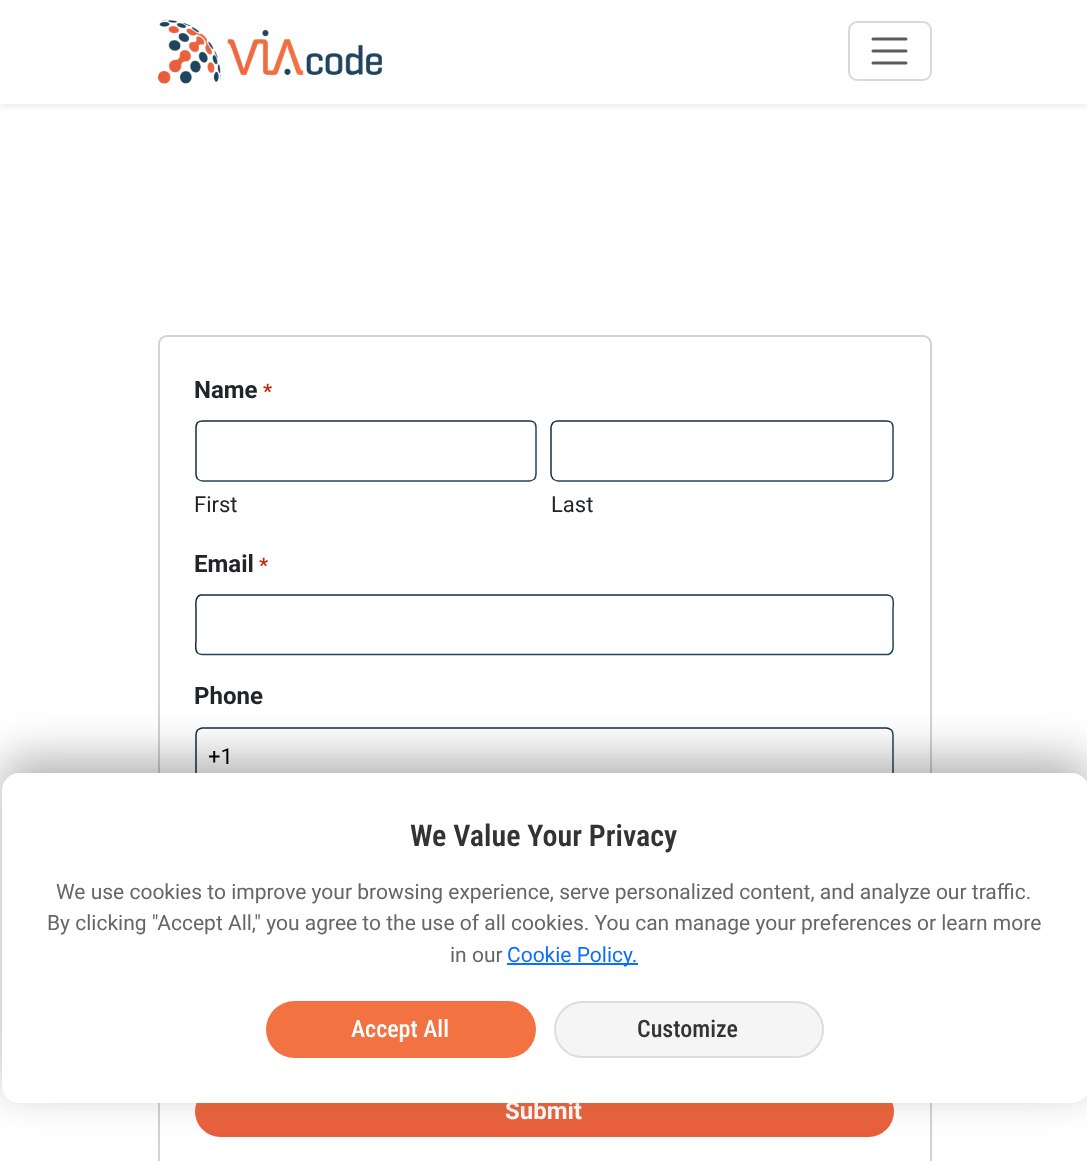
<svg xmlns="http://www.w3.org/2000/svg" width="1087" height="1161">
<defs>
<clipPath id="clip1"><rect x="209" y="741" width="672" height="33"/></clipPath>
<linearGradient id="g1" gradientUnits="userSpaceOnUse" x1="545" y1="1086" x2="545" y2="1137"><stop offset="0" stop-color="#f27242"/><stop offset="1" stop-color="#e85d3d"/></linearGradient>
<clipPath id="clip2"><path d="M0 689h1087v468h-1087zm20 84h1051c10 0 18 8 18 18v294c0 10-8 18-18 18h-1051c-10 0-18-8-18-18v-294c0-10 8-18 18-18z" clip-rule="evenodd"/></clipPath>
</defs>
<rect width="100%" height="100%" fill="#fff"/>
<rect y="3" width="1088" height="104" fill="#00000012" filter="blur(3px)"/>
<rect width="1087" height="104" fill="#fff"/>
<image x="157" y="19" width="226" height="65" href="media/1.png"/>
<rect x="849" y="22" width="82" height="58" rx="8" fill="none" stroke="#d9d9d9" stroke-width="2"/>
<path d="M873 39h33m-33 12h33m-33 12h33" fill="none" stroke="#595c5f" stroke-width="3" stroke-linecap="round"/>
<rect x="159" y="336" width="772" height="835" rx="8" fill="none" stroke="#d2d2d2" stroke-width="2"/>
<text x="194" y="398" style="font-family:Roboto;font-size:24px;font-weight:bold;fill:#212529">Name</text>
<text x="263" y="398" style="font-family:Roboto;font-size:20px;font-weight:bold;fill:#c02b0a">*</text>
<path d="M534.5 422.5c1 1.5 1.5 3 1.5 5v46.5c0 2-.5 3.5-1.5 5c-1.5 1-3 2-5 2h-327c-2 0-3.5-1-5-2" fill="none" stroke="#1f455e" stroke-width="1.5"/>
<path d="M197.5 479c-1-1.5-1.5-3-1.5-5v-46.5c0-2 .5-3.5 1.5-5c1.5-1 3-1.5 5-1.5h327c2 0 3.5 .5 5 1.5" fill="none" stroke="#152e3f" stroke-width="1.5"/>
<text x="194" y="512" style="font-family:Roboto;font-size:22px;fill:#212529">First</text>
<path d="M891.5 422.5c1 1.5 1.5 3 1.5 5v46.5c0 2-.5 3.5-1.5 5c-1.5 1-3 2-5 2h-328.5c-2 0-3.5-1-5-2" fill="none" stroke="#1f455e" stroke-width="1.5"/>
<path d="M553 479c-1-1.5-2-3-2-5v-46.5c0-2 1-3.5 2-5c1.5-1 3-1.5 5-1.5h328.5c2 0 3.5 .5 5 1.5" fill="none" stroke="#152e3f" stroke-width="1.5"/>
<text x="551" y="512" style="font-family:Roboto;font-size:22px;fill:#212529">Last</text>
<text x="194" y="572" style="font-family:Roboto;font-size:24px;font-weight:bold;fill:#212529">Email</text>
<text x="259" y="572" style="font-family:Roboto;font-size:20px;font-weight:bold;fill:#c02b0a">*</text>
<path d="M891.5 596.5c3 3.5 1.5 9 1.5 12.5v31c0 5 1.5 12.5-4.5 14.5h-686.5c-1.5 0-3-.5-4.5-1.5" fill="none" stroke="#1f455e" stroke-width="1.5"/>
<path d="M197.5 653c-3-3.5-1.5-9-1.5-13v-31c0-4.5-1.5-12 4.5-14h686.5c1.5 0 3 .5 4.5 1.5" fill="none" stroke="#152e3f" stroke-width="1.5"/>
<text x="194" y="704" style="font-family:Roboto;font-size:24px;font-weight:bold;fill:#212529">Phone</text>
<path d="M891.5 730c1 1.5 1.5 3 1.5 5v45c0 2-.5 3.5-1.5 5c-1.5 1-3 2-5 2h-684c-2 0-3.5-1-5-2" fill="none" stroke="#1f455e" stroke-width="1.5"/>
<path d="M197.5 785c-1-1.5-1.5-3-1.5-5v-45c0-2 .5-3.5 1.5-5c1.5-1 3-2 5-2h684c2 0 3.5 1 5 2" fill="none" stroke="#152e3f" stroke-width="1.5"/>
<g clip-path="url(#clip1)">
<text x="208" y="764" style="font-family:Roboto;font-size:22px;fill:#000">+1</text>
</g>
<rect x="195" y="1086" width="699" height="51" rx="25.5" fill="url(#g1)"/>
<text x="505" y="1119" style="font-family:Roboto;font-size:24px;font-weight:bold;fill:#fff">Submit</text>
<g clip-path="url(#clip2)">
<rect x="2" y="758" width="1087" height="330" rx="18" fill="#0000004d" filter="blur(22.5px)"/>
</g>
<rect x="2" y="773" width="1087" height="330" rx="18" fill="#fff"/>
<text x="410" y="846" style="font-family:Roboto Condensed;font-size:30px;font-weight:600;fill:#333">We Value Your Privacy</text>
<text x="56" y="899" style="font-family:Roboto;font-size:21px;fill:#666">We use cookies to improve your browsing experience, serve personalized content, and analyze our traffic.</text>
<text x="47" y="930" style="font-family:Roboto;font-size:21px;fill:#666">By clicking "Accept All," you agree to the use of all cookies. You can manage your preferences or learn more</text>
<text x="450" y="962" style="font-family:Roboto;font-size:21px;fill:#666">in our</text>
<rect x="507" y="963" width="131" height="2" fill="#0d6efd"/>
<text x="507" y="962" style="font-family:Roboto;font-size:21px;fill:#0d6efd">Cookie Policy.</text>
<rect x="266" y="1001" width="270" height="57" rx="28.5" fill="#f27242"/>
<text x="351" y="1037" style="font-family:Roboto Condensed;font-size:24px;font-weight:500;fill:#fff">Accept All</text>
<rect x="555" y="1002" width="268" height="55" rx="27.5" fill="#f5f5f5" stroke="#ddd" stroke-width="2"/>
<text x="637" y="1037" style="font-family:Roboto Condensed;font-size:24px;font-weight:500;fill:#333">Customize</text>
</svg>
